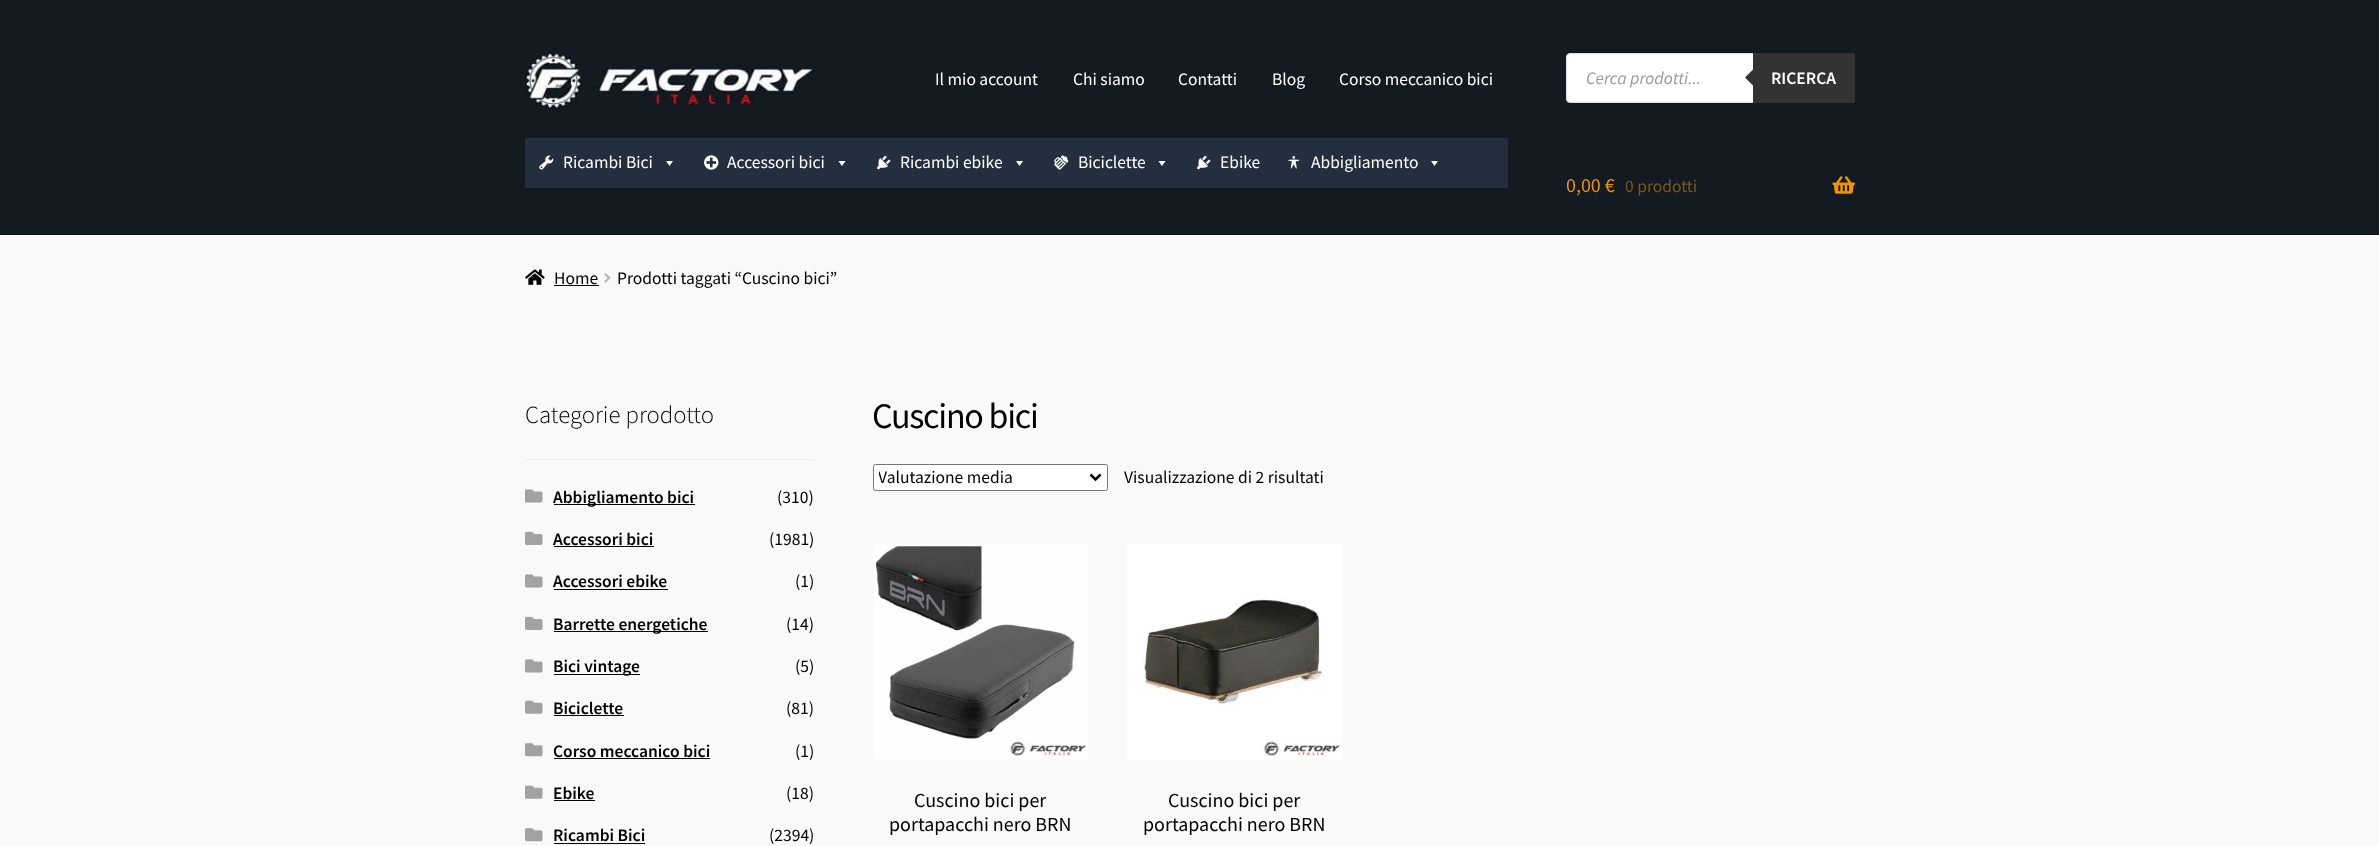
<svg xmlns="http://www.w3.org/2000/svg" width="2379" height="846">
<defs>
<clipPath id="clip1"><rect x="879" y="465" width="207" height="25"/></clipPath>
</defs>
<rect width="100%" height="100%" fill="#f9f9f9"/>
<rect width="2379" height="234" fill="#131a22"/>
<rect y="234" width="2379" height="1" fill="#040b13"/>
<image x="525" y="52" width="288" height="57" href="media/1.png"/>
<text x="935" y="85" style="font-family:Source Sans Pro;font-size:17.5px;fill:#fff">Il mio account</text>
<text x="1073" y="85" style="font-family:Source Sans Pro;font-size:17.5px;fill:#fff">Chi siamo</text>
<text x="1178" y="85" style="font-family:Source Sans Pro;font-size:17.5px;fill:#fff">Contatti</text>
<text x="1272" y="85" style="font-family:Source Sans Pro;font-size:17.5px;fill:#fff">Blog</text>
<text x="1339" y="85" style="font-family:Source Sans Pro;font-size:17.5px;fill:#fff">Corso meccanico bici</text>
<rect x="1566.5" y="53.5" width="288" height="49" rx="3.5" fill="#fff" stroke="#ddd"/>
<text x="1586" y="84" style="font-family:Source Sans Pro;font-size:17.5px;font-style:italic;fill:#999">Cerca prodotti...</text>
<path d="M1753 53h99.5c1.5 0 2.5 1 2.5 2.5v45c0 1.5-1 2.5-2.5 2.5h-99.5z" fill="#333"/>
<path d="M1755 67.5v20l-10-10z" fill="#333"/>
<text x="1771" y="84" style="font-family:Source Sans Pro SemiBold;font-size:17.5px;font-weight:600;fill:#fff">RICERCA</text>
<rect x="525" y="138" width="983" height="50" fill="#232f3e"/>
<image x="539" y="155" width="15" height="15" href="media/2.png"/>
<text x="563" y="168" style="font-family:Source Sans Pro;font-size:17.5px;fill:#fff">Ricambi Bici</text>
<path d="M673 161l-3.5 5l-3.5-5z" fill="#fff"/>
<image x="704" y="155" width="15" height="15" href="media/3.png"/>
<text x="727" y="168" style="font-family:Source Sans Pro;font-size:17.5px;fill:#fff">Accessori bici</text>
<path d="M845.5 161l-3.5 5l-3.5-5z" fill="#fff"/>
<image x="877" y="155" width="14" height="15" href="media/4.png"/>
<text x="900" y="168" style="font-family:Source Sans Pro;font-size:17.5px;fill:#fff">Ricambi ebike</text>
<path d="M1023 161l-3.5 5l-3.5-5z" fill="#fff"/>
<image x="1054" y="155" width="15" height="15" href="media/5.png"/>
<text x="1078" y="168" style="font-family:Source Sans Pro;font-size:17.5px;fill:#fff">Biciclette</text>
<path d="M1165.5 161l-3.5 5l-3.5-5z" fill="#fff"/>
<image x="1197" y="155" width="14" height="15" href="media/4.png"/>
<text x="1220" y="168" style="font-family:Source Sans Pro;font-size:17.5px;fill:#fff">Ebike</text>
<image x="1288" y="156" width="12" height="13" href="media/6.png"/>
<text x="1311" y="168" style="font-family:Source Sans Pro;font-size:17.5px;fill:#fff">Abbigliamento</text>
<path d="M1438 161l-3.5 5l-3.5-5z" fill="#fff"/>
<text x="1566" y="192" style="font-family:Source Sans Pro;font-size:20px;fill:#ef9309">0,00 €</text>
<text x="1625" y="192" style="font-family:Source Sans Pro;font-size:17.5px;fill:#815716">0 prodotti</text>
<image x="1832" y="176" width="23" height="18" href="media/7.png"/>
<image x="525" y="269" width="20" height="16" href="media/8.png"/>
<text x="554" y="284" style="font-family:Source Sans Pro;font-size:17.5px;fill:#000">Home</text>
<rect x="554" y="285" width="45" height="1" fill="#050505"/>
<image x="604" y="273" width="7" height="10" href="media/9.png"/>
<text x="617" y="284" style="font-family:Source Sans Pro;font-size:17.5px;fill:#000">Prodotti taggati “Cuscino bici”</text>
<rect x="525" y="459" width="289" height="1" fill="#ededed"/>
<text x="525" y="423" style="font-family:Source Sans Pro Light;font-size:24.75px;font-weight:300;fill:#000">Categorie prodotto</text>
<image x="525" y="489" width="18" height="14" href="media/10.png"/>
<rect x="554" y="504" width="141" height="1" fill="#050505"/>
<text x="553" y="503" style="font-family:Source Sans Pro SemiBold;font-size:17.5px;font-weight:600;fill:#000">Abbigliamento bici</text>
<text x="777" y="503" style="font-family:Source Sans Pro;font-size:17.5px;fill:#000">(310)</text>
<image x="525" y="531" width="18" height="14" href="media/11.png"/>
<text x="553" y="545" style="font-family:Source Sans Pro SemiBold;font-size:17.5px;font-weight:600;fill:#000">Accessori bici</text>
<rect x="554" y="546" width="100" height="1" fill="#050505"/>
<text x="769" y="545" style="font-family:Source Sans Pro;font-size:17.5px;fill:#000">(1981)</text>
<image x="525" y="574" width="18" height="14" href="media/10.png"/>
<text x="553" y="587" style="font-family:Source Sans Pro SemiBold;font-size:17.5px;font-weight:600;fill:#000">Accessori ebike</text>
<rect x="554" y="589" width="114" height="1" fill="#050505"/>
<text x="795" y="587" style="font-family:Source Sans Pro;font-size:17.5px;fill:#000">(1)</text>
<image x="525" y="616" width="18" height="14" href="media/11.png"/>
<rect x="554" y="631" width="154" height="1" fill="#050505"/>
<text x="553" y="630" style="font-family:Source Sans Pro SemiBold;font-size:17.5px;font-weight:600;fill:#000">Barrette energetiche</text>
<text x="786" y="630" style="font-family:Source Sans Pro;font-size:17.5px;fill:#000">(14)</text>
<image x="525" y="659" width="18" height="14" href="media/10.png"/>
<rect x="554" y="674" width="86" height="1" fill="#050505"/>
<text x="553" y="672" style="font-family:Source Sans Pro SemiBold;font-size:17.5px;font-weight:600;fill:#000">Bici vintage</text>
<text x="795" y="672" style="font-family:Source Sans Pro;font-size:17.5px;fill:#000">(5)</text>
<image x="525" y="700" width="18" height="14" href="media/12.png"/>
<text x="553" y="714" style="font-family:Source Sans Pro SemiBold;font-size:17.5px;font-weight:600;fill:#000">Biciclette</text>
<rect x="554" y="715" width="70" height="1" fill="#050505"/>
<text x="786" y="714" style="font-family:Source Sans Pro;font-size:17.5px;fill:#000">(81)</text>
<image x="525" y="743" width="18" height="14" href="media/13.png"/>
<text x="553" y="757" style="font-family:Source Sans Pro SemiBold;font-size:17.5px;font-weight:600;fill:#000">Corso meccanico bici</text>
<rect x="554" y="758" width="156" height="1" fill="#050505"/>
<text x="795" y="757" style="font-family:Source Sans Pro;font-size:17.5px;fill:#000">(1)</text>
<image x="525" y="785" width="18" height="14" href="media/12.png"/>
<text x="553" y="799" style="font-family:Source Sans Pro SemiBold;font-size:17.5px;font-weight:600;fill:#000">Ebike</text>
<rect x="554" y="800" width="41" height="1" fill="#050505"/>
<text x="786" y="799" style="font-family:Source Sans Pro;font-size:17.5px;fill:#000">(18)</text>
<image x="525" y="828" width="18" height="14" href="media/13.png"/>
<text x="553" y="841" style="font-family:Source Sans Pro SemiBold;font-size:17.5px;font-weight:600;fill:#000">Ricambi Bici</text>
<rect x="554" y="843" width="91" height="1" fill="#050505"/>
<text x="769" y="841" style="font-family:Source Sans Pro;font-size:17.5px;fill:#000">(2394)</text>
<text x="872" y="428" style="font-family:Source Sans Pro;font-size:36px;letter-spacing:-1.25px;fill:#000">Cuscino bici</text>
<rect x="873.5" y="464.5" width="234" height="26" rx="2" fill="#fff" stroke="#767676"/>
<path d="M1090.5 474.5l5 5l5-5" fill="none" stroke="#000" stroke-width="2.5"/>
<g clip-path="url(#clip1)">
<text x="878" y="483" style="font-family:Source Sans Pro;font-size:17.5px;fill:#000">Valutazione media</text>
</g>
<text x="1124" y="483" style="font-family:Source Sans Pro;font-size:17.5px;fill:#000">Visualizzazione di 2 risultati</text>
<image x="873" y="544" width="215" height="216" href="media/14.png"/>
<text x="914" y="807" style="font-family:Source Sans Pro;font-size:20px;fill:#000">Cuscino bici per</text>
<text x="889" y="831" style="font-family:Source Sans Pro;font-size:20px;fill:#000">portapacchi nero BRN</text>
<image x="1127" y="544" width="215" height="216" href="media/15.png"/>
<text x="1168" y="807" style="font-family:Source Sans Pro;font-size:20px;fill:#000">Cuscino bici per</text>
<text x="1143" y="831" style="font-family:Source Sans Pro;font-size:20px;fill:#000">portapacchi nero BRN</text>
</svg>
